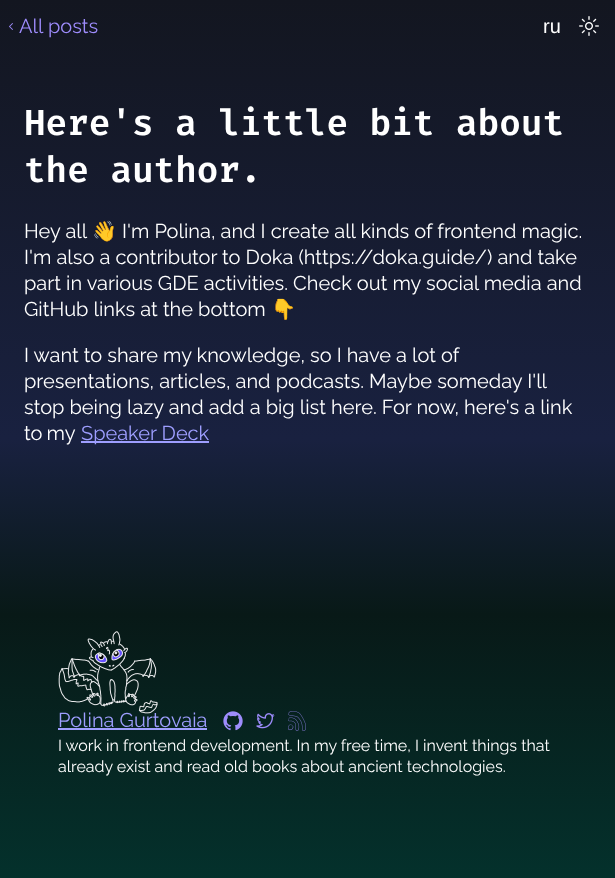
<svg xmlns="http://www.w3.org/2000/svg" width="615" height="878">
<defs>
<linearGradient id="g1" gradientUnits="userSpaceOnUse" x1="308" y1="878" x2="308" y2="0"><stop offset="0" stop-color="#04312c"/><stop offset="0.3" stop-color="#081917"/><stop offset="0.5" stop-color="#192140"/><stop offset="1" stop-color="#131620"/></linearGradient>
</defs>
<rect width="100%" height="100%" fill="#fff"/>
<rect width="615" height="878" fill="url(#g1)"/>
<image x="9" y="23" width="4" height="7" href="media/1.png"/>
<text x="19" y="33" style="font-family:Raleway;font-size:20px;font-weight:100;fill:#9e8cfc">All posts</text>
<text x="543" y="33" style="font-family:Liberation Sans;font-size:20px;fill:#fff">ru</text>
<image x="579" y="16" width="20" height="20" href="media/2.png"/>
<text x="24" y="135" style="font-family:Fira Code;font-size:36px;font-weight:600;fill:#fff">Here's a little bit about</text>
<text x="24" y="182" style="font-family:Fira Code;font-size:36px;font-weight:600;fill:#fff">the author.</text>
<text x="24" y="238" style="font-family:Raleway;font-size:20px;font-weight:100;fill:#fff">Hey all</text>
<text x="92" y="238" style="font-family:Noto Color Emoji;font-size:20px;fill:#fff">👋</text>
<text x="122" y="238" style="font-family:Raleway;font-size:20px;font-weight:100;fill:#fff">I'm Polina, and I create all kinds of frontend magic.</text>
<text x="24" y="264" style="font-family:Raleway;font-size:20px;font-weight:100;fill:#fff">I'm also a contributor to Doka (https://doka.guide/) and take</text>
<text x="24" y="290" style="font-family:Raleway;font-size:20px;font-weight:100;fill:#fff">part in various GDE activities. Check out my social media and</text>
<text x="24" y="316" style="font-family:Raleway;font-size:20px;font-weight:100;fill:#fff">GitHub links at the bottom</text>
<text x="271" y="316" style="font-family:Noto Color Emoji;font-size:20px;fill:#fff">👇</text>
<text x="24" y="362" style="font-family:Raleway;font-size:20px;font-weight:100;fill:#fff">I want to share my knowledge, so I have a lot of</text>
<text x="24" y="388" style="font-family:Raleway;font-size:20px;font-weight:100;fill:#fff">presentations, articles, and podcasts. Maybe someday I'll</text>
<text x="24" y="414" style="font-family:Raleway;font-size:20px;font-weight:100;fill:#fff">stop being lazy and add a big list here. For now, here's a link</text>
<text x="24" y="440" word-spacing="-1" style="font-family:Raleway;font-size:20px;font-weight:100;fill:#fff">to my</text>
<rect x="81" y="441" width="128" height="2" fill="#9e9eff"/>
<text x="81" y="440" style="font-family:Raleway;font-size:20px;font-weight:100;fill:#9e9eff">Speaker Deck</text>
<text x="58" y="727" style="font-family:Raleway;font-size:20px;font-weight:100;fill:#9e9eff">Polina Gurtovaia</text>
<image x="58" y="631" width="100" height="83" href="media/3.png"/>
<rect x="58" y="728" width="149" height="2" fill="#9e9eff"/>
<image x="223" y="711" width="20" height="20" href="media/4.png"/>
<image x="256" y="713" width="19" height="16" href="media/5.png"/>
<image x="288" y="711" width="18" height="20" href="media/6.png"/>
<text x="58" y="751" style="font-family:Raleway;font-size:16px;font-weight:100;fill:#fff">I work in frontend development. In my free time, I invent things that</text>
<text x="58" y="772" style="font-family:Raleway;font-size:16px;font-weight:100;fill:#fff">already exist and read old books about ancient technologies.</text>
</svg>
